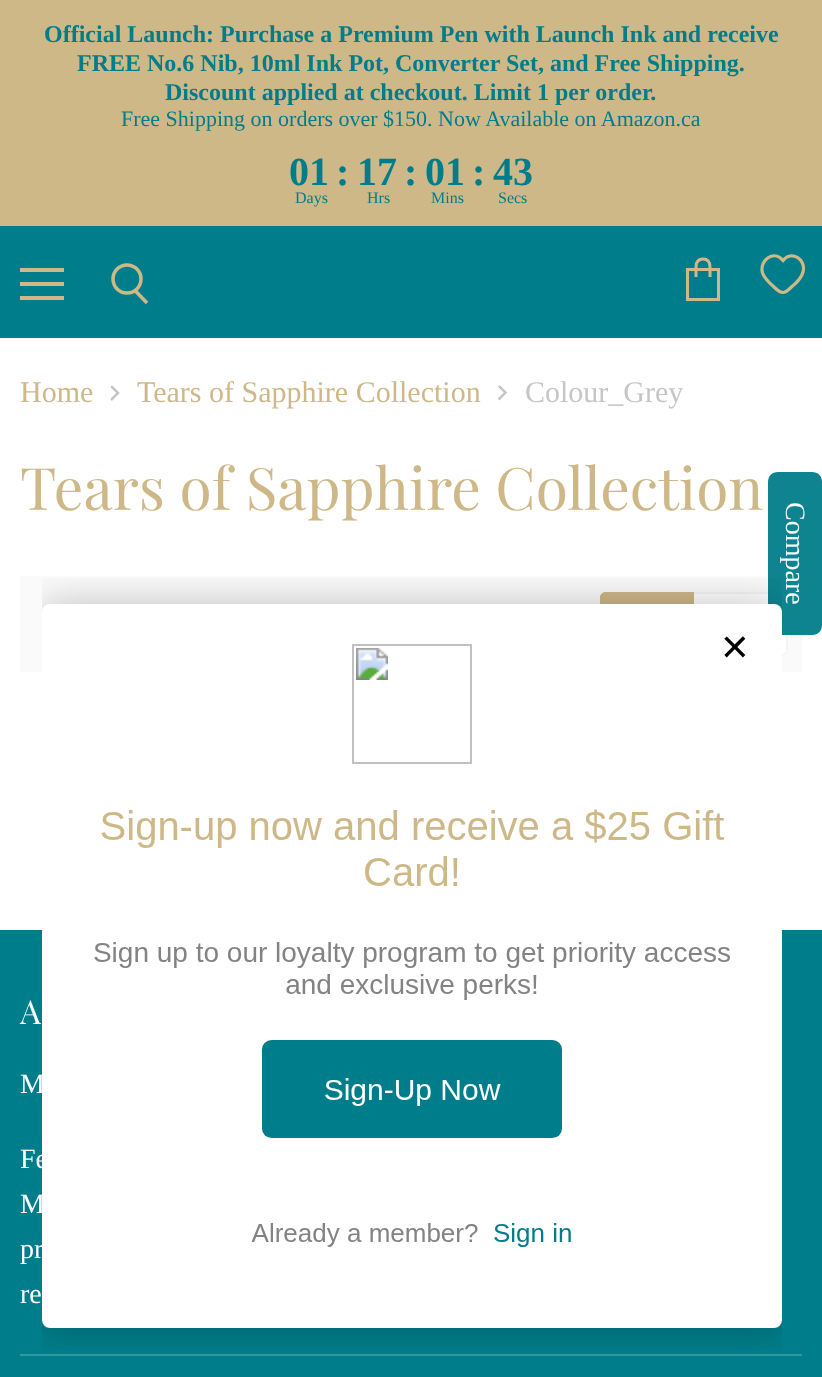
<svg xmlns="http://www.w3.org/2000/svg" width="822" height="1377">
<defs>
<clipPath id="clip1"><path d="M110.5 401.5v-16h10v16z"/></clipPath>
<clipPath id="clip2"><path d="M498 401.5v-16h10v16z"/></clipPath>
</defs>
<rect width="100%" height="100%" fill="#fff"/>
<rect width="822" height="226" fill="#ceb888"/>
<text x="44" y="42" style="font-family:Liberation Serif;font-size:24px;font-weight:bold;fill:#007d8a">Official Launch: Purchase a Premium Pen with Launch Ink and receive</text>
<text x="77" y="71" style="font-family:Liberation Serif;font-size:24px;font-weight:bold;fill:#007d8a">FREE No.6 Nib, 10ml Ink Pot, Converter Set, and Free Shipping.</text>
<text x="165" y="100" style="font-family:Liberation Serif;font-size:24px;font-weight:bold;fill:#007d8a">Discount applied at checkout. Limit 1 per order.</text>
<text x="121" y="126" style="font-family:Liberation Serif;font-size:22px;fill:#007d8a">Free Shipping on orders over $150. Now Available on Amazon.ca</text>
<text x="289" y="185" style="font-family:Liberation Serif;font-size:40px;font-weight:bold;fill:#007d8a">01</text>
<text x="336" y="185" style="font-family:Liberation Serif;font-size:40px;font-weight:bold;fill:#007d8a">:</text>
<text x="357" y="185" style="font-family:Liberation Serif;font-size:40px;font-weight:bold;fill:#007d8a">17</text>
<text x="404" y="185" style="font-family:Liberation Serif;font-size:40px;font-weight:bold;fill:#007d8a">:</text>
<text x="425" y="185" style="font-family:Liberation Serif;font-size:40px;font-weight:bold;fill:#007d8a">01</text>
<text x="472" y="185" style="font-family:Liberation Serif;font-size:40px;font-weight:bold;fill:#007d8a">:</text>
<text x="493" y="185" style="font-family:Liberation Serif;font-size:40px;font-weight:bold;fill:#007d8a">43</text>
<text x="295" y="203" style="font-family:Liberation Serif;font-size:16px;fill:#007d8a">Days</text>
<text x="367" y="203" style="font-family:Liberation Serif;font-size:16px;fill:#007d8a">Hrs</text>
<text x="431" y="203" style="font-family:Liberation Serif;font-size:16px;fill:#007d8a">Mins</text>
<text x="498" y="203" style="font-family:Liberation Serif;font-size:16px;fill:#007d8a">Secs</text>
<rect y="226" width="822" height="112" fill="#007d8a"/>
<rect x="20" y="268" width="44" height="4" fill="#ceb888"/>
<rect x="20" y="282" width="44" height="4" fill="#ceb888"/>
<rect x="20" y="296" width="44" height="4" fill="#ceb888"/>
<path d="M147 303l-12-12.5" fill="none" stroke="#ceb888" stroke-width="3.5"/>
<circle cx="127" cy="279" r="14" fill="none" stroke="#ceb888" stroke-width="3.5"/>
<path d="M687.5 269.5h31v30h-31zm22.5 7.5v-10c0-5.5-3-8-7-8c-4 0-7 2.5-7 8v10" fill="none" stroke="#ceb888" stroke-width="3"/>
<path d="M783 292.5c-3 0-7.5-4-9.5-6c-4-3.5-9-8-11-13.5c-3.5-13 11.5-23.5 20.5-12.5c8-10.5 23.5-1.5 20 11.5c-1.5 6-6 10.5-11 14.5c-1 1-6.5 6-9 6z" fill="none" stroke="#ceb888" stroke-width="3.2"/>
<text x="20" y="402" style="font-family:Liberation Serif;font-size:30px;fill:#ceb888">Home</text>
<g clip-path="url(#clip1)">
<path d="M111 400l7-7l-7-7" fill="none" stroke="#c6c6c6" stroke-width="2.5"/>
</g>
<text x="137" y="402" style="font-family:Liberation Serif;font-size:30px;fill:#ceb888">Tears of Sapphire Collection</text>
<g clip-path="url(#clip2)">
<path d="M498.5 399.5l7-7l-7-7" fill="none" stroke="#c6c6c6" stroke-width="2.5"/>
</g>
<text x="525" y="402" style="font-family:Liberation Serif;font-size:30px;fill:#c6c6c6">Colour_Grey</text>
<text x="20" y="510" style="font-family:Playfair Display;font-size:58.6px;fill:#ceb888">Tears of Sapphire Collection</text>
<rect x="20" y="576" width="782" height="96" fill="#fafafa"/>
<path d="M606 592h88v64h-88c-3.5 0-6-2.5-6-6v-52c0-3.5 2.5-6 6-6z" fill="#ceb888"/>
<path d="M606 592h88v64h-88c-3 0-6-3-6-6v-52c0-3 3-6 6-6zm0 2h88v60h-88c-2 0-4-2-4-4v-52c0-2 2-4 4-4z" fill="#ceb888" fill-rule="evenodd"/>
<path d="M694 592h88c3.5 0 6 2.5 6 6v52c0 3.5-2.5 6-6 6h-88z" fill="#fff"/>
<path d="M694 592h88c3 0 6 3 6 6v52c0 3-3 6-6 6h-88zm0 2h88c2 0 4 2 4 4v52c0 2-2 4-4 4h-88z" fill="#f4f4f4" fill-rule="evenodd"/>
<path d="M822 482v143c0 6-4 10-10 10h-34c-6 0-10-4-10-10v-143c0-6 4-10 10-10h34c6 0 10 4 10 10z" fill="#007d8af2"/>
<text x="786" y="502" transform="rotate(90 786 502)" style="font-family:Liberation Serif;font-size:28px;fill:#f3f9f9">Compare</text>
<rect y="930" width="822" height="447" fill="#007d8a"/>
<rect x="20" y="1354" width="782" height="2" fill="#3397a1"/>
<text x="20" y="1024" style="font-family:Playfair Display;font-size:33px;letter-spacing:8px;fill:#fff">A</text>
<text x="20" y="1093" style="font-family:Liberation Serif;font-size:28px;fill:#fff">M</text>
<text x="20" y="1168" style="font-family:Liberation Serif;font-size:28px;fill:#fff">Fe</text>
<text x="20" y="1213" style="font-family:Liberation Serif;font-size:28px;fill:#fff">M</text>
<text x="20" y="1258" style="font-family:Liberation Serif;font-size:28px;fill:#fff">pr</text>
<text x="20" y="1303" style="font-family:Liberation Serif;font-size:28px;fill:#fff">re</text>
<image x="42" y="578" width="740" height="772" href="media/1.png"/>
</svg>
